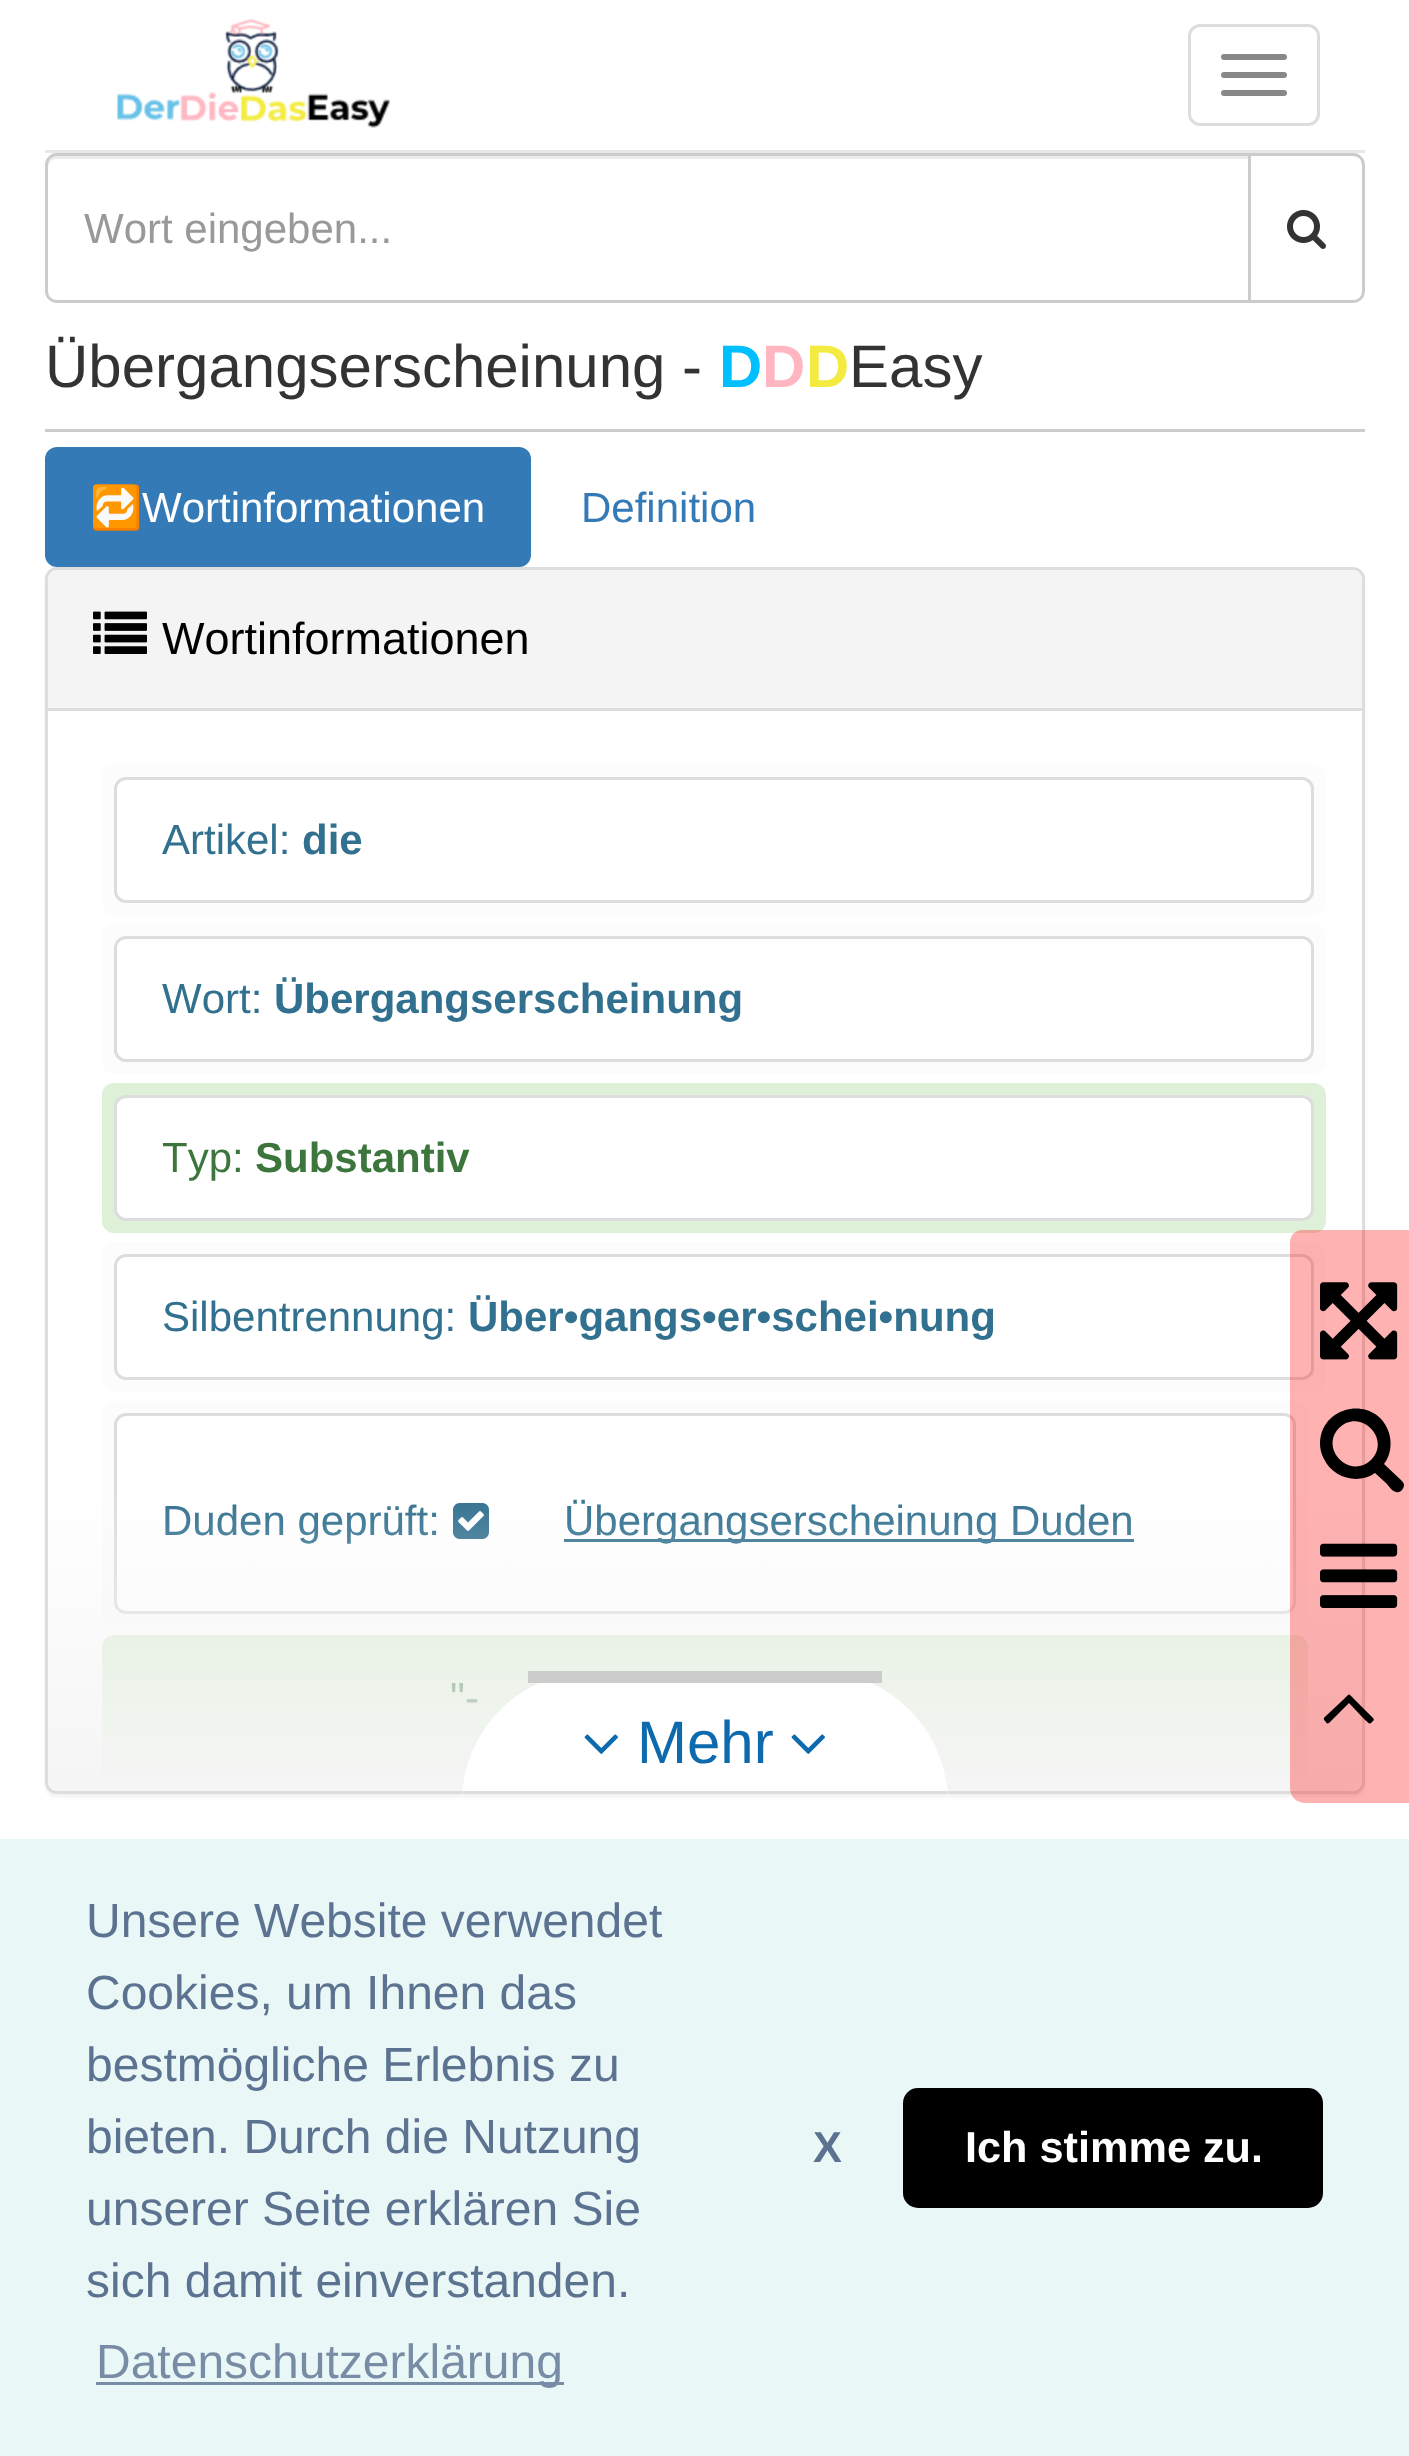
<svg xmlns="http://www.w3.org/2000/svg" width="1409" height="2456">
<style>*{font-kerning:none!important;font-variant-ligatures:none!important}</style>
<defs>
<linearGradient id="g1" gradientUnits="userSpaceOnUse" x1="705" y1="1491" x2="705" y2="1791"><stop offset="0" stop-color="#f5f5f5" stop-opacity="0"/><stop offset="1" stop-color="#f5f5f5"/></linearGradient>
</defs>
<rect width="100%" height="100%" fill="#fff"/>
<rect x="45" y="150" width="1320" height="3" fill="#e7e7e7"/>
<image x="116" y="18" width="274" height="110" href="media/1.png"/>
<rect x="1189.5" y="25.5" width="129" height="99" rx="10.5" fill="none" stroke="#ddd" stroke-width="3"/>
<rect x="1221" y="54" width="66" height="6" rx="3" fill="#888"/>
<rect x="1221" y="72" width="66" height="6" rx="3" fill="#888"/>
<rect x="1221" y="90" width="66" height="6" rx="3" fill="#888"/>
<path d="M57 159h1191v-3h-1191c-5 0-9 4-9 9v3c0-5 4-9 9-9z" fill="#ececec"/>
<path d="M57 154.5h1192.5v147h-1192.5c-6 0-10.5-4.5-10.5-10.5v-126c0-6 4.5-10.5 10.5-10.5z" fill="none" stroke="#ccc" stroke-width="3"/>
<text x="84" y="243" style="font-family:Liberation Sans;font-size:42px;fill:#999">Wort eingeben...</text>
<path d="M1249.5 154.5h103.5c6 0 10.5 4.5 10.5 10.5v126c0 6-4.5 10.5-10.5 10.5h-103.5z" fill="#fff" stroke="#ccc" stroke-width="3"/>
<image x="1287" y="210" width="39" height="39" href="media/2.png"/>
<rect x="45" y="429" width="1320" height="3" fill="#ccc"/>
<text x="45" y="387" style="font-family:Liberation Sans;font-size:60px;fill:#333">Übergangserscheinung -</text>
<text x="719" y="387" style="font-family:Liberation Sans;font-size:60px;font-weight:bold;fill:#00bfff">D</text>
<text x="762" y="387" style="font-family:Liberation Sans;font-size:60px;font-weight:bold;fill:#ffb6c1">D</text>
<text x="806" y="387" style="font-family:Liberation Sans;font-size:60px;font-weight:bold;fill:#f4eb42">D</text>
<text x="849" y="387" style="font-family:Liberation Sans;font-size:60px;fill:#333">Easy</text>
<rect x="45" y="447" width="486" height="120" rx="12" fill="#337ab7"/>
<text x="90" y="522" style="font-family:Noto Color Emoji;font-size:42px;fill:#000">🔁</text>
<text x="142" y="522" style="font-family:Liberation Sans;font-size:42px;fill:#fff">Wortinformationen</text>
<text x="581" y="522" style="font-family:Liberation Sans;font-size:42px;fill:#337ab7">Definition</text>
<rect x="45" y="570" width="1320" height="1227" rx="12" fill="#0000000d" filter="blur(1.5px)"/>
<rect x="46.5" y="568.5" width="1317" height="1224" rx="10.5" fill="#fff" stroke="#ddd" stroke-width="3"/>
<path d="M57 570h1296c5 0 9 4 9 9v132h-1314v-132c0-5 4-9 9-9z" fill="#f5f4f4"/>
<rect x="48" y="708" width="1314" height="3" fill="#ddd"/>
<image x="93" y="611" width="54" height="43" href="media/3.png"/>
<text x="162" y="654" style="font-family:Liberation Sans;font-size:45px;fill:#000">Wortinformationen</text>
<rect x="102" y="765" width="1224" height="150" rx="12" fill="#fdfcfc"/>
<rect x="115.5" y="778.5" width="1197" height="123" rx="10.5" fill="#fff" stroke="#ddd" stroke-width="3"/>
<text x="162" y="854" style="font-family:Liberation Sans;font-size:42px;fill:#31708f">Artikel:</text>
<text x="302" y="854" style="font-family:Liberation Sans;font-size:42px;font-weight:bold;fill:#31708f">die</text>
<rect x="102" y="924" width="1224" height="150" rx="12" fill="#fdfcfc"/>
<rect x="115.5" y="937.5" width="1197" height="123" rx="10.5" fill="#fff" stroke="#ddd" stroke-width="3"/>
<text x="162" y="1013" style="font-family:Liberation Sans;font-size:42px;fill:#31708f">Wort:</text>
<text x="274" y="1013" style="font-family:Liberation Sans;font-size:42px;font-weight:bold;fill:#31708f">Übergangserscheinung</text>
<rect x="102" y="1083" width="1224" height="150" rx="12" fill="#dff0d8"/>
<rect x="115.5" y="1096.5" width="1197" height="123" rx="10.5" fill="#fff" stroke="#ddd" stroke-width="3"/>
<text x="162" y="1172" style="font-family:Liberation Sans;font-size:42px;fill:#3c763d">Typ:</text>
<text x="255" y="1172" style="font-family:Liberation Sans;font-size:42px;font-weight:bold;fill:#3c763d">Substantiv</text>
<rect x="102" y="1242" width="1224" height="150" rx="12" fill="#fdfcfc"/>
<rect x="115.5" y="1255.5" width="1197" height="123" rx="10.5" fill="#fff" stroke="#ddd" stroke-width="3"/>
<text x="162" y="1331" style="font-family:Liberation Sans;font-size:42px;fill:#31708f">Silbentrennung:</text>
<text x="468" y="1331" style="font-family:Liberation Sans;font-size:42px;font-weight:bold;fill:#31708f">Über•gangs•er•schei•nung</text>
<rect x="102" y="1401" width="1206" height="225" rx="12" fill="#fdfcfc"/>
<rect x="115.5" y="1414.5" width="1179" height="198" rx="10.5" fill="#fff" stroke="#ddd" stroke-width="3"/>
<text x="162" y="1535" style="font-family:Liberation Sans;font-size:42px;fill:#31708f">Duden geprüft:</text>
<image x="453" y="1503" width="36" height="36" href="media/4.png"/>
<rect x="564" y="1539" width="570" height="3" fill="#31708f"/>
<text x="564" y="1535" style="font-family:Liberation Sans;font-size:42px;fill:#31708f">Übergangserscheinung Duden</text>
<path d="M114 1635h1182c6.5 0 12 5.5 12 12v144h-1206v-144c0-6.5 5.5-12 12-12z" fill="#dff0d8"/>
<text x="450" y="1712" style="font-family:Liberation Sans;font-size:42px;fill:#3c763d">"-</text>
<path d="M48 1491h1314v288c0 6.5-5.5 12-12 12h-1290c-6.5 0-12-5.5-12-12z" fill="url(#g1)"/>
<path d="M594 1671h222c73 0 132 59 132 132v-12h-486v12c0-73 59-132 132-132z" fill="#fff"/>
<rect x="528" y="1671" width="354" height="12" fill="#ccc"/>
<image x="584" y="1734" width="34" height="20" href="media/5.png"/>
<text x="637" y="1763" style="font-family:Liberation Sans;font-size:60px;fill:#0d6aad">Mehr</text>
<image x="791" y="1734" width="34" height="20" href="media/5.png"/>
<path d="M1302 1230h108v573h-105c-8.5 0-15-6.5-15-15v-546c0-6.5 5.5-12 12-12z" fill="#ff00004d"/>
<image x="1320" y="1282" width="78" height="78" href="media/6.png"/>
<path d="M1371 1460c21-21-11-53-32-32c-20 21 11 52 32 32zm33 25c0 3-2 5-3 6c-6 4-11-3-14-7l-12-11c-17 12-42 5-51-14c-4-7-5-16-3-24c9-34 58-36 68-2c3 10 2 22-5 31l18 17c1 1 2 3 2 4z" fill="#000"/>
<image x="1320" y="1543" width="78" height="65" href="media/7.png"/>
<path d="M1373 1718c2 2 0 3-1 4c-3 3-3 1-7-2l-16-17l-20 20c-2 1-3 0-3-1c-4-4-2-4 2-8l16-15c6-6 4-6 10 0z" fill="#000"/>
<rect y="1839" width="1409" height="617" fill="#eaf7f7"/>
<text x="86" y="1937" style="font-family:Liberation Sans;font-size:48px;fill:#5c7291">Unsere Website verwendet</text>
<text x="86" y="2009" style="font-family:Liberation Sans;font-size:48px;fill:#5c7291">Cookies, um Ihnen das</text>
<text x="86" y="2081" style="font-family:Liberation Sans;font-size:48px;fill:#5c7291">bestmögliche Erlebnis zu</text>
<text x="86" y="2153" style="font-family:Liberation Sans;font-size:48px;fill:#5c7291">bieten. Durch die Nutzung</text>
<text x="86" y="2225" style="font-family:Liberation Sans;font-size:48px;fill:#5c7291">unserer Seite erklären Sie</text>
<text x="86" y="2297" style="font-family:Liberation Sans;font-size:48px;fill:#5c7291">sich damit einverstanden.</text>
<rect x="96" y="2382" width="468" height="3" fill="#788da5"/>
<text x="96" y="2378" style="font-family:Liberation Sans;font-size:48px;fill:#788da5">Datenschutzerklärung</text>
<text x="813" y="2162" style="font-family:Liberation Sans;font-size:43.25px;font-weight:bold;fill:#5c7291">X</text>
<rect x="903" y="2088" width="420" height="120" rx="15" fill="#000"/>
<text x="965" y="2162" style="font-family:Liberation Sans;font-size:43.25px;font-weight:bold;fill:#fff">Ich stimme zu.</text>
</svg>
